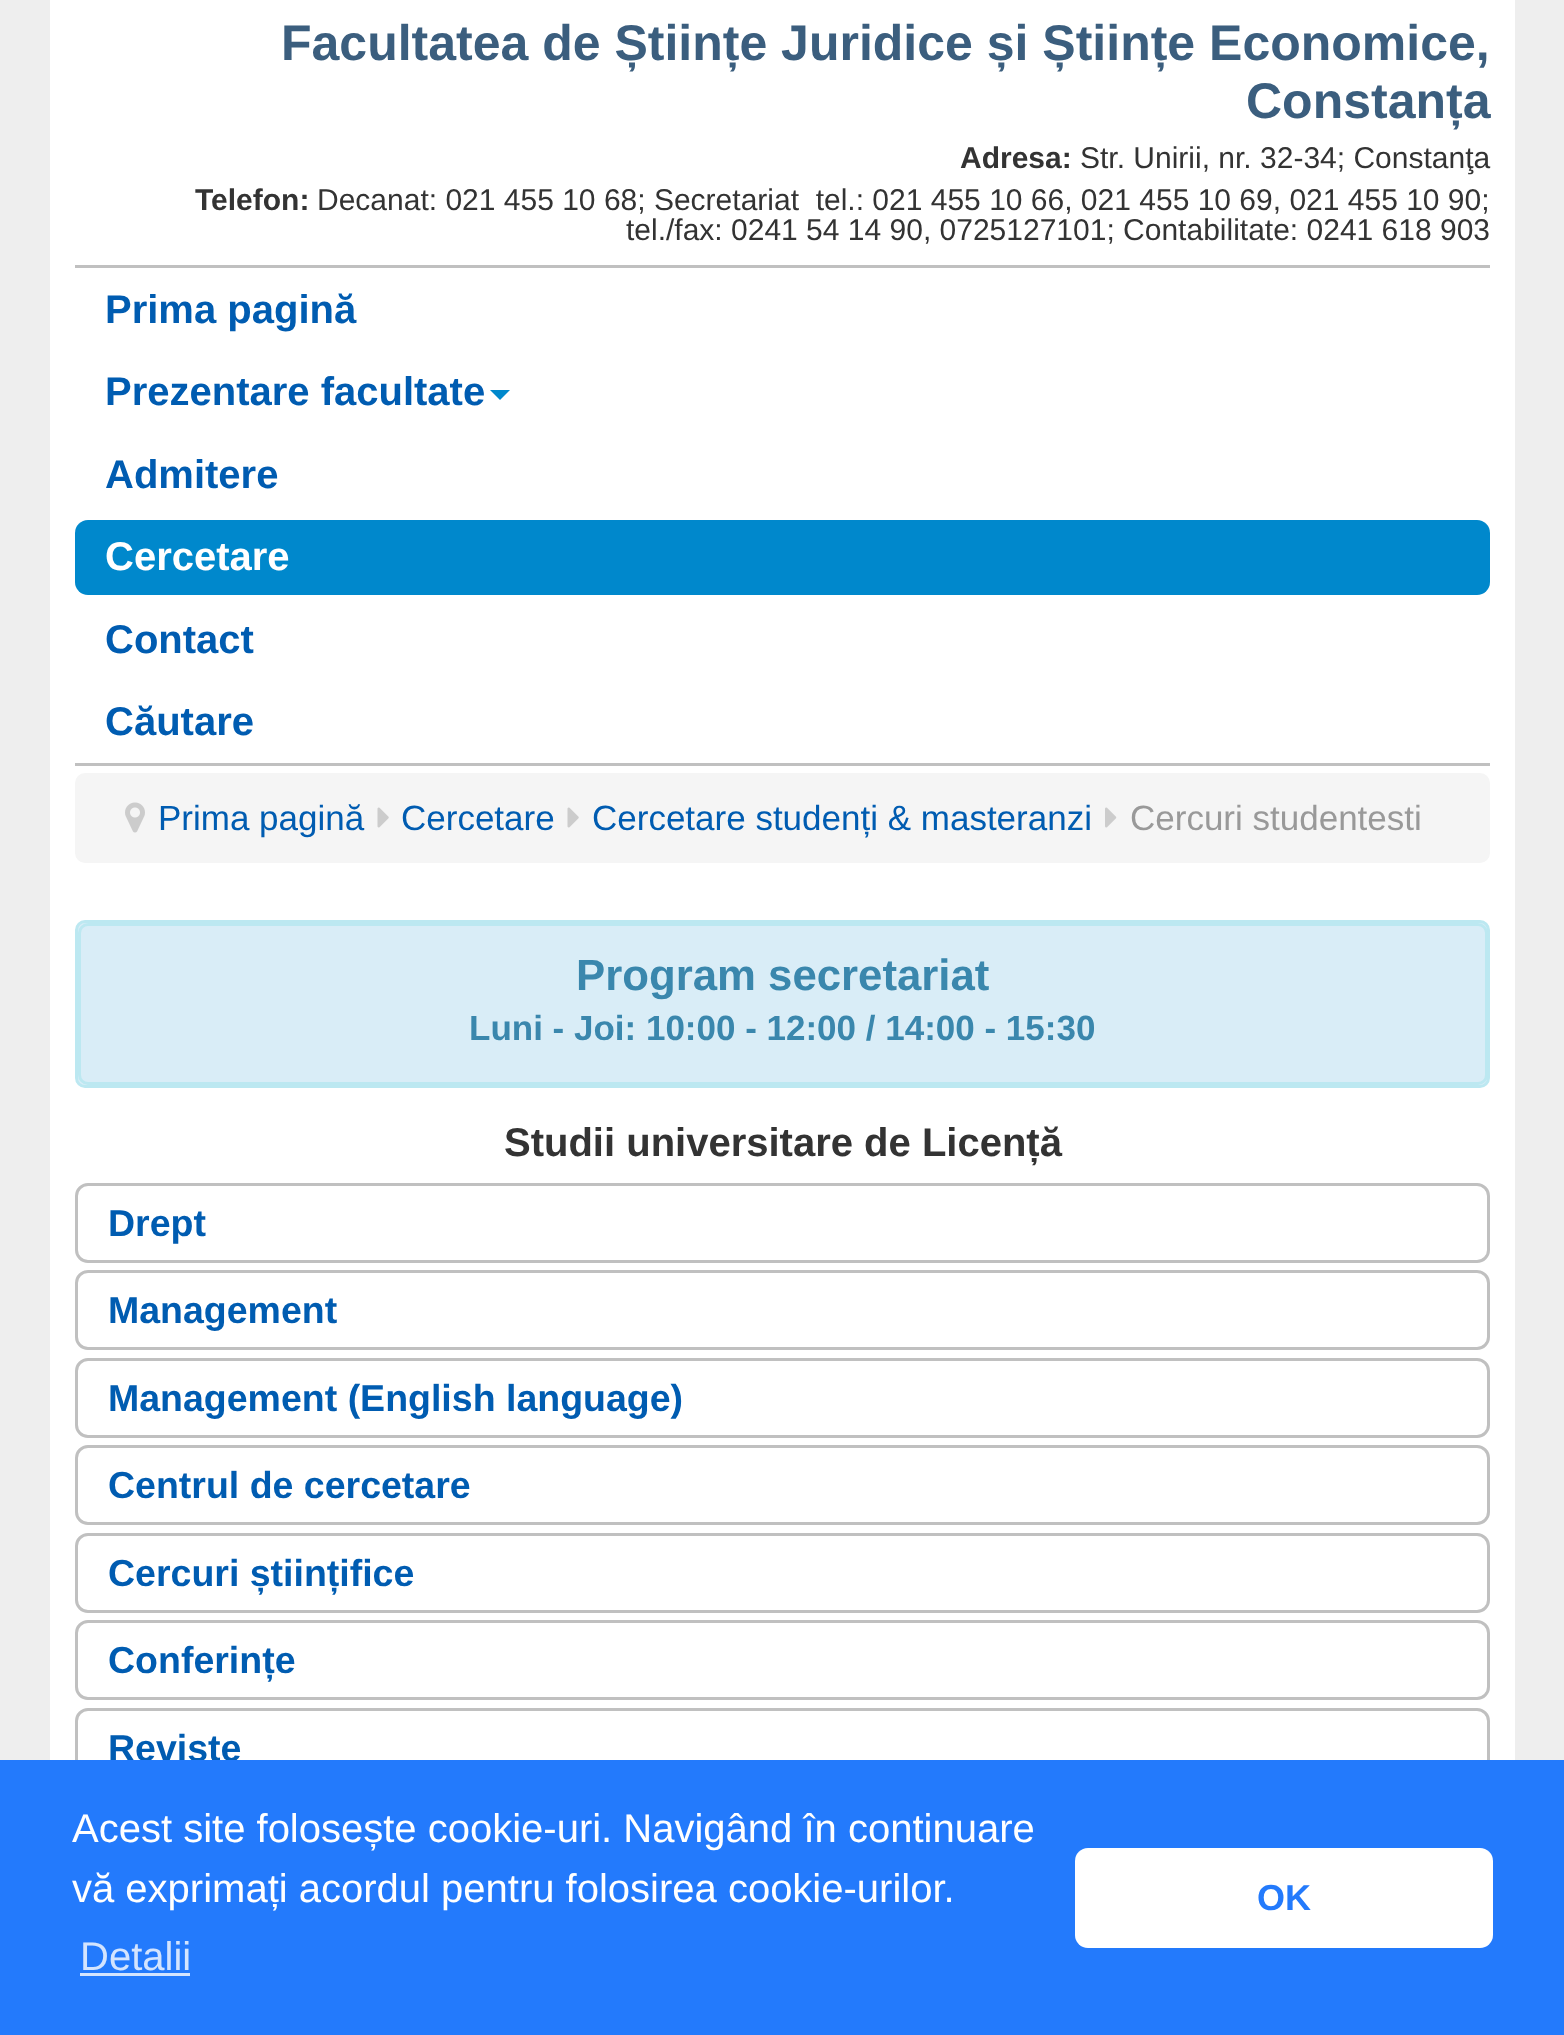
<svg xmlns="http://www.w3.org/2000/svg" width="1564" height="2035">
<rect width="100%" height="100%" fill="#eee"/>
<rect x="50" width="1465" height="1760" fill="#fff"/>
<text x="281" y="60" style="font-family:Liberation Sans;font-size:50px;font-weight:bold;fill:#3b5e7e">Facultatea de Științe Juridice și Științe Economice,</text>
<text x="1246" y="118" style="font-family:Liberation Sans;font-size:50px;font-weight:bold;fill:#3b5e7e">Constanța</text>
<text x="960" y="168" style="font-family:Liberation Sans;font-size:30px;font-weight:bold;fill:#333">Adresa:</text>
<text x="1080" y="168" style="font-family:Liberation Sans;font-size:30px;fill:#333">Str. Unirii, nr. 32-34; Constanţa</text>
<text x="195" y="210" style="font-family:Liberation Sans;font-size:30px;font-weight:bold;fill:#333">Telefon:</text>
<text x="317" y="210" style="font-family:Liberation Sans;font-size:30px;fill:#333" xml:space="preserve">Decanat: 021 455 10 68; Secretariat  tel.: 021 455 10 66, 021 455 10 69, 021 455 10 90;</text>
<text x="626" y="240" style="font-family:Liberation Sans;font-size:30px;fill:#333">tel./fax: 0241 54 14 90, 0725127101; Contabilitate: 0241 618 903</text>
<rect x="75" y="265" width="1415" height="3" fill="#c0c0c0"/>
<rect x="75" y="763" width="1415" height="3" fill="#c0c0c0"/>
<text x="105" y="323" style="font-family:Liberation Sans;font-size:40px;font-weight:bold;fill:#005cb1">Prima pagină</text>
<text x="105" y="405" style="font-family:Liberation Sans;font-size:40px;font-weight:bold;fill:#005cb1">Prezentare facultate</text>
<path d="M490 390h20l-10 10z" fill="#08c"/>
<text x="105" y="488" style="font-family:Liberation Sans;font-size:40px;font-weight:bold;fill:#005cb1">Admitere</text>
<rect x="75" y="520" width="1415" height="75" rx="13" fill="#08c"/>
<text x="105" y="570" style="font-family:Liberation Sans;font-size:40px;font-weight:bold;fill:#fff">Cercetare</text>
<text x="105" y="653" style="font-family:Liberation Sans;font-size:40px;font-weight:bold;fill:#005cb1">Contact</text>
<text x="105" y="735" style="font-family:Liberation Sans;font-size:40px;font-weight:bold;fill:#005cb1">Căutare</text>
<rect x="75" y="773" width="1415" height="90" rx="10" fill="#f5f5f5"/>
<image x="125" y="802" width="20" height="31" href="media/1.png"/>
<text x="158" y="830" style="font-family:Liberation Sans;font-size:35px;fill:#005cb1">Prima pagină</text>
<image x="377" y="807" width="12" height="21" href="media/2.png"/>
<text x="401" y="830" style="font-family:Liberation Sans;font-size:35px;fill:#005cb1">Cercetare</text>
<image x="567" y="807" width="12" height="21" href="media/2.png"/>
<text x="592" y="830" style="font-family:Liberation Sans;font-size:35px;fill:#005cb1">Cercetare studenți &amp; masteranzi</text>
<image x="1105" y="807" width="12" height="21" href="media/3.png"/>
<text x="1130" y="830" style="font-family:Liberation Sans;font-size:35px;fill:#999">Cercuri studentesti</text>
<rect x="76.5" y="921.5" width="1412" height="165" rx="8.5" fill="#d9edf7" stroke="#bce8f1" stroke-width="3"/>
<rect x="79.5" y="924.5" width="1407" height="159" rx="8.5" fill="#d9edf7" stroke="#bce8f1" stroke-width="3"/>
<text x="576" y="990" style="font-family:Liberation Sans;font-size:43.75px;font-weight:bold;fill:#3a87ad">Program secretariat</text>
<text x="469" y="1040" style="font-family:Liberation Sans;font-size:35px;font-weight:bold;fill:#3a87ad">Luni - Joi: 10:00 - 12:00 / 14:00 - 15:30</text>
<text x="504" y="1156" style="font-family:Liberation Sans;font-size:40px;font-weight:bold;fill:#333">Studii universitare de Licență</text>
<rect x="76.5" y="1184.5" width="1412" height="77" rx="11.5" fill="none" stroke="#c0c0c0" stroke-width="3"/>
<text x="108" y="1236" style="font-family:Liberation Sans;font-size:37.5px;font-weight:bold;fill:#005cb1">Drept</text>
<rect x="76.5" y="1271.5" width="1412" height="77" rx="11.5" fill="none" stroke="#c0c0c0" stroke-width="3"/>
<text x="108" y="1323" style="font-family:Liberation Sans;font-size:37.5px;font-weight:bold;fill:#005cb1">Management</text>
<rect x="76.5" y="1359.5" width="1412" height="77" rx="11.5" fill="none" stroke="#c0c0c0" stroke-width="3"/>
<text x="108" y="1411" style="font-family:Liberation Sans;font-size:37.5px;font-weight:bold;fill:#005cb1">Management (English language)</text>
<rect x="76.5" y="1446.5" width="1412" height="77" rx="11.5" fill="none" stroke="#c0c0c0" stroke-width="3"/>
<text x="108" y="1498" style="font-family:Liberation Sans;font-size:37.5px;font-weight:bold;fill:#005cb1">Centrul de cercetare</text>
<rect x="76.5" y="1534.5" width="1412" height="77" rx="11.5" fill="none" stroke="#c0c0c0" stroke-width="3"/>
<text x="108" y="1586" style="font-family:Liberation Sans;font-size:37.5px;font-weight:bold;fill:#005cb1">Cercuri științifice</text>
<rect x="76.5" y="1621.5" width="1412" height="77" rx="11.5" fill="none" stroke="#c0c0c0" stroke-width="3"/>
<text x="108" y="1673" style="font-family:Liberation Sans;font-size:37.5px;font-weight:bold;fill:#005cb1">Conferințe</text>
<rect x="76.5" y="1709.5" width="1412" height="77" rx="11.5" fill="none" stroke="#c0c0c0" stroke-width="3"/>
<text x="108" y="1761" style="font-family:Liberation Sans;font-size:37.5px;font-weight:bold;fill:#005cb1">Reviste</text>
<rect y="1760" width="1564" height="275" fill="#237afc"/>
<text x="72" y="1842" style="font-family:Liberation Sans;font-size:40px;fill:#fff">Acest site folosește cookie-uri. Navigând în continuare</text>
<text x="72" y="1902" style="font-family:Liberation Sans;font-size:40px;fill:#fff">vă exprimați acordul pentru folosirea cookie-urilor.</text>
<text x="80" y="1970" style="font-family:Liberation Sans;font-size:40px;fill:#d3e4fe">Detalii</text>
<rect x="80" y="1973" width="110" height="3" fill="#d3e4fe"/>
<rect x="1075" y="1848" width="418" height="100" rx="13" fill="#fff"/>
<text x="1257" y="1910" style="font-family:Liberation Sans;font-size:36px;font-weight:bold;fill:#237afc">OK</text>
</svg>
